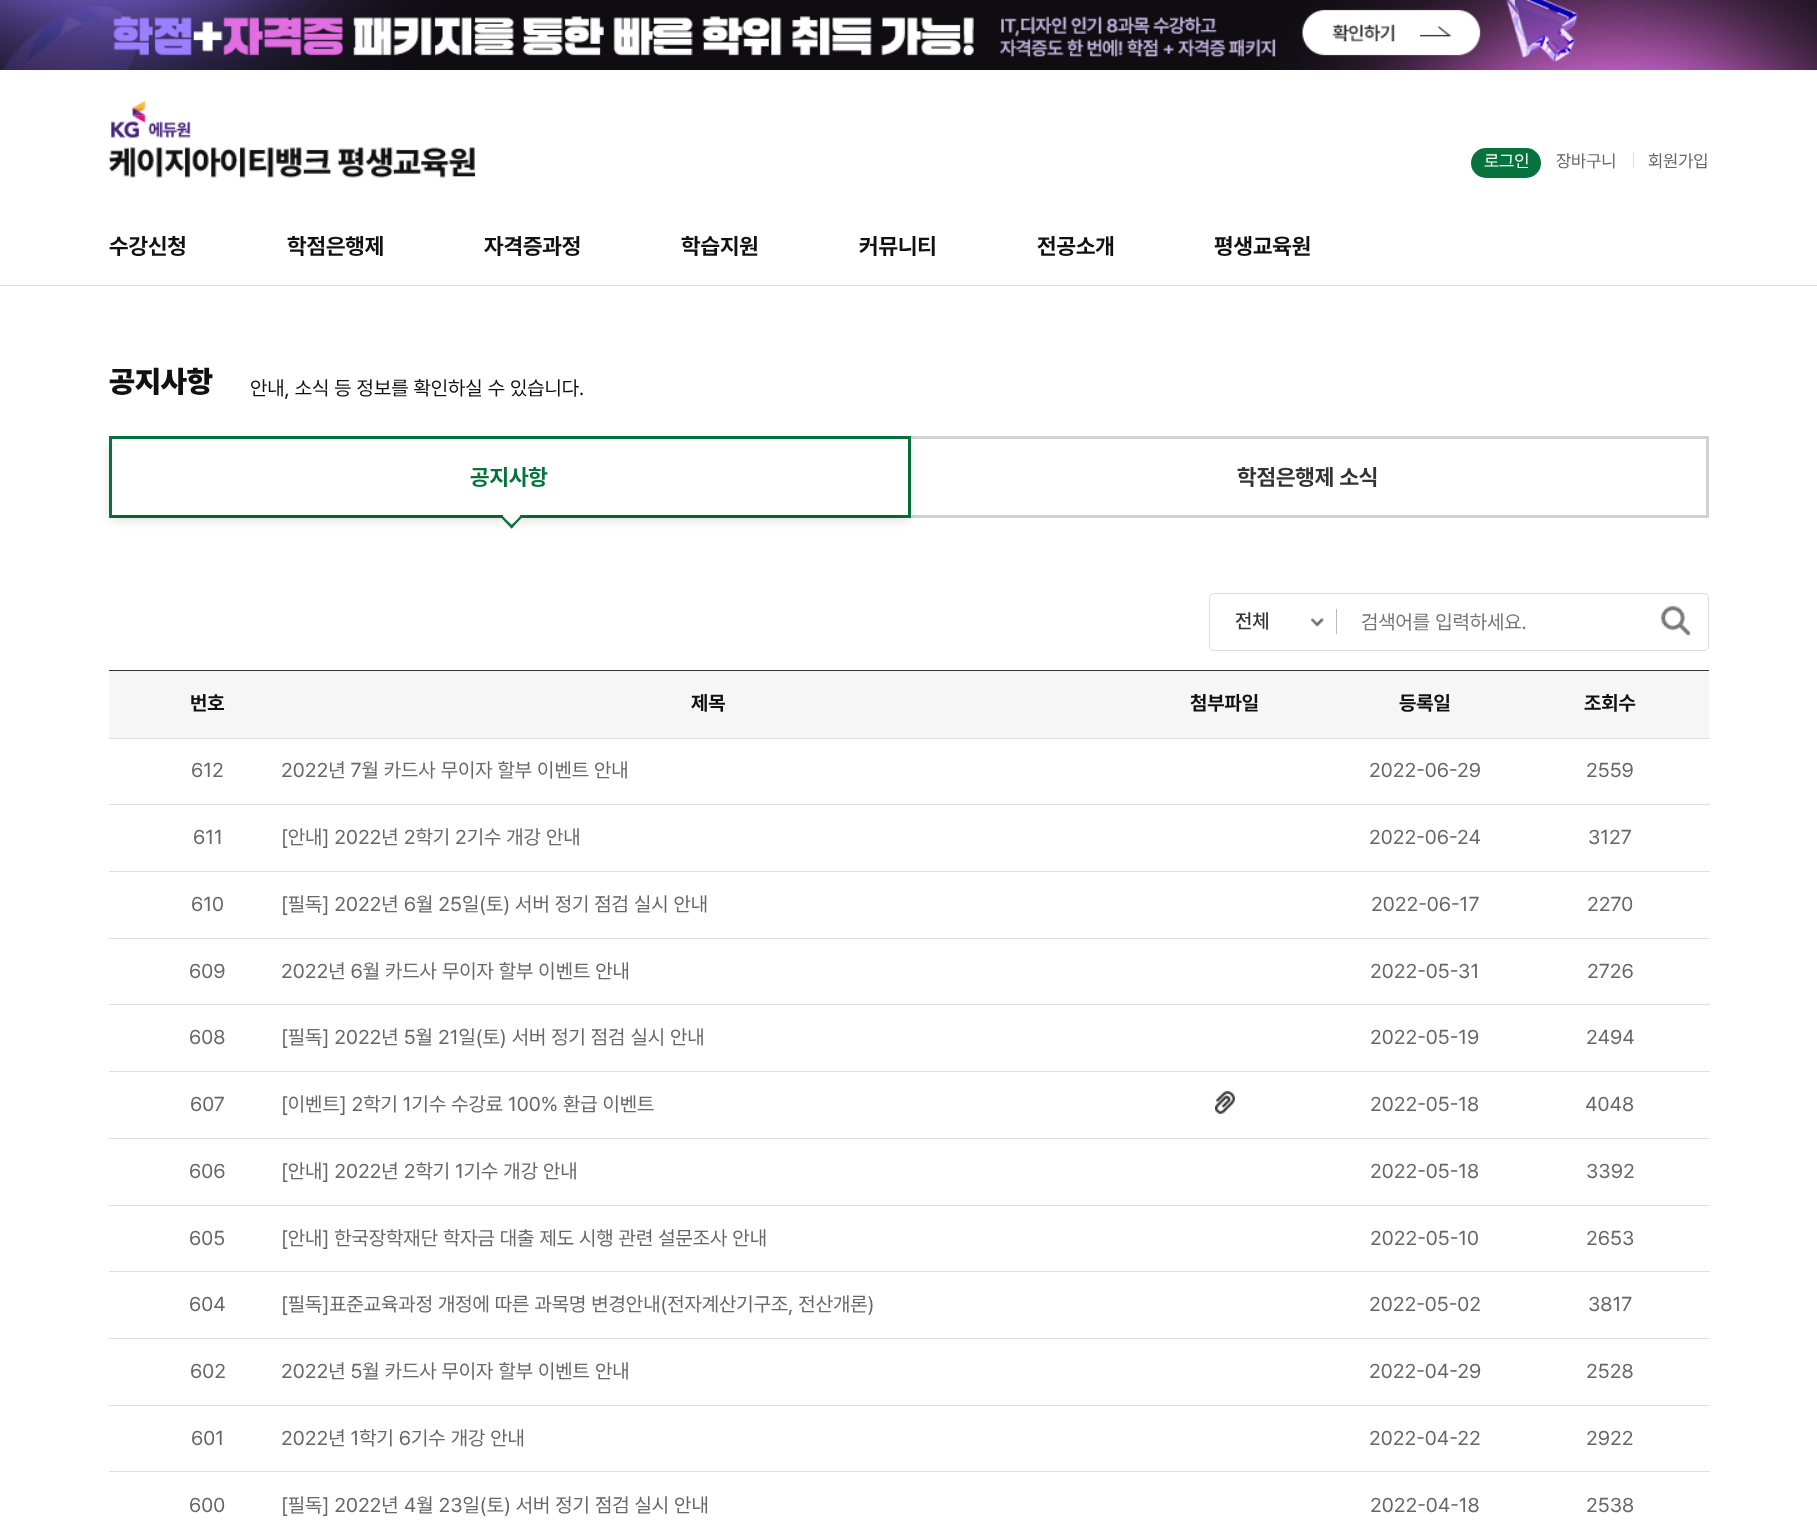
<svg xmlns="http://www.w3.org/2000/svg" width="1817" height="1537">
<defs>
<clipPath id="clip1"><path d="M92 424h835v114h-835zm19 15h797v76h-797z" clip-rule="evenodd"/></clipPath>
</defs>
<rect width="100%" height="100%" fill="#fff"/>
<image x="0" y="0" width="1817" height="70" href="media/1.png"/>
<image x="119" y="18" width="936" height="37" href="media/2.png"/>
<image x="108" y="101" width="367" height="77" href="media/3.png"/>
<rect x="1471" y="148" width="70" height="30" rx="15" fill="#06733c"/>
<text x="1484" y="167" style="font-family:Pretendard;font-size:17.5px;fill:#fff">로그인</text>
<text x="1556" y="167" style="font-family:Pretendard;font-size:17.5px;fill:#666">장바구니</text>
<rect x="1633" y="153" width="1" height="15" fill="#ddd"/>
<text x="1648" y="167" style="font-family:Pretendard;font-size:17.5px;fill:#666">회원가입</text>
<rect y="285" width="1817" height="1" fill="#dedede"/>
<text x="109" y="254" style="font-family:Pretendard;font-size:22.5px;font-weight:bold;fill:#111">수강신청</text>
<text x="287" y="254" style="font-family:Pretendard;font-size:22.5px;font-weight:bold;fill:#111">학점은행제</text>
<text x="484" y="254" style="font-family:Pretendard;font-size:22.5px;font-weight:bold;fill:#111">자격증과정</text>
<text x="681" y="254" style="font-family:Pretendard;font-size:22.5px;font-weight:bold;fill:#111">학습지원</text>
<text x="859" y="254" style="font-family:Pretendard;font-size:22.5px;font-weight:bold;fill:#111">커뮤니티</text>
<text x="1037" y="254" style="font-family:Pretendard;font-size:22.5px;font-weight:bold;fill:#111">전공소개</text>
<text x="1214" y="254" style="font-family:Pretendard;font-size:22.5px;font-weight:bold;fill:#111">평생교육원</text>
<text x="109" y="392" style="font-family:Pretendard;font-size:30px;font-weight:900;fill:#111">공지사항</text>
<text x="250" y="395" style="font-family:Pretendard;font-size:20px;fill:#111">안내, 소식 등 정보를 확인하실 수 있습니다.</text>
<rect x="908" y="436" width="801" height="3" fill="#d2d2d2"/>
<rect x="109" y="436" width="801" height="3" fill="#06733c"/>
<rect x="1706" y="436" width="3" height="82" fill="#d2d2d2"/>
<rect x="908" y="515" width="801" height="3" fill="#d2d2d2"/>
<rect x="908" y="436" width="3" height="82" fill="#06733c"/>
<rect x="109" y="515" width="801" height="3" fill="#06733c"/>
<g clip-path="url(#clip1)">
<rect x="111" y="443" width="797" height="76" fill="#00000029" filter="blur(6px)"/>
</g>
<rect x="109" y="436" width="3" height="82" fill="#06733c"/>
<text x="470" y="485" style="font-family:Pretendard;font-size:22.5px;font-weight:bold;fill:#06733c">공지사항</text>
<path d="M511.5 507l9 9l-9 9l-9-9z" fill="#fff"/>
<path d="M520.5 516l1.5 1.5l-10.5 11l-1.5-2z" fill="#06733c"/>
<path d="M502.5 516l11 10.5l-2 2l-10.5-11z" fill="#06733c"/>
<text x="1237" y="485" style="font-family:Pretendard;font-size:22.5px;font-weight:bold;fill:#333">학점은행제 소식</text>
<rect x="1209.5" y="593.5" width="499" height="57" rx="4.5" fill="none" stroke="#ddd"/>
<image x="1310" y="617" width="14" height="10" href="media/4.png"/>
<text x="1235" y="628" style="font-family:Pretendard;font-size:20px;font-weight:500;fill:#333">전체</text>
<rect x="1336" y="609" width="1" height="25" fill="#bbb"/>
<text x="1361" y="629" style="font-family:Pretendard;font-size:20px;fill:#757575">검색어를 입력하세요.</text>
<image x="1661" y="606" width="30" height="30" href="media/5.png"/>
<rect x="109" y="670" width="1600" height="1" fill="#333"/>
<rect x="109" y="671" width="1600" height="67" fill="#f6f6f6"/>
<rect x="109" y="738" width="1601" height="1" fill="#dfdfdf"/>
<text x="190" y="710" style="font-family:Pretendard;font-size:20px;font-weight:bold;fill:#111">번호</text>
<text x="691" y="710" style="font-family:Pretendard;font-size:20px;font-weight:bold;fill:#111">제목</text>
<text x="1190" y="710" style="font-family:Pretendard;font-size:20px;font-weight:bold;fill:#111">첨부파일</text>
<text x="1399" y="710" style="font-family:Pretendard;font-size:20px;font-weight:bold;fill:#111">등록일</text>
<text x="1584" y="710" style="font-family:Pretendard;font-size:20px;font-weight:bold;fill:#111">조회수</text>
<rect x="109" y="804" width="1601" height="1" fill="#dfdfdf"/>
<text x="191" y="777" style="font-family:Pretendard;font-size:20px;fill:#666">612</text>
<text x="281" y="777" style="font-family:Pretendard;font-size:20px;fill:#666">2022년 7월 카드사 무이자 할부 이벤트 안내</text>
<text x="1369" y="777" style="font-family:Pretendard;font-size:20px;fill:#666">2022-06-29</text>
<text x="1586" y="777" style="font-family:Pretendard;font-size:20px;fill:#666">2559</text>
<rect x="109" y="871" width="1601" height="1" fill="#dfdfdf"/>
<text x="193" y="844" style="font-family:Pretendard;font-size:20px;fill:#666">611</text>
<text x="281" y="844" style="font-family:Pretendard;font-size:20px;fill:#666">[안내] 2022년 2학기 2기수 개강 안내</text>
<text x="1369" y="844" style="font-family:Pretendard;font-size:20px;fill:#666">2022-06-24</text>
<text x="1588" y="844" style="font-family:Pretendard;font-size:20px;fill:#666">3127</text>
<rect x="109" y="938" width="1601" height="1" fill="#dfdfdf"/>
<text x="191" y="911" style="font-family:Pretendard;font-size:20px;fill:#666">610</text>
<text x="281" y="911" style="font-family:Pretendard;font-size:20px;fill:#666">[필독] 2022년 6월 25일(토) 서버 정기 점검 실시 안내</text>
<text x="1371" y="911" style="font-family:Pretendard;font-size:20px;fill:#666">2022-06-17</text>
<text x="1587" y="911" style="font-family:Pretendard;font-size:20px;fill:#666">2270</text>
<rect x="109" y="1004" width="1601" height="1" fill="#dfdfdf"/>
<text x="189" y="978" style="font-family:Pretendard;font-size:20px;fill:#666">609</text>
<text x="281" y="978" style="font-family:Pretendard;font-size:20px;fill:#666">2022년 6월 카드사 무이자 할부 이벤트 안내</text>
<text x="1370" y="978" style="font-family:Pretendard;font-size:20px;fill:#666">2022-05-31</text>
<text x="1587" y="978" style="font-family:Pretendard;font-size:20px;fill:#666">2726</text>
<rect x="109" y="1071" width="1601" height="1" fill="#dfdfdf"/>
<text x="189" y="1044" style="font-family:Pretendard;font-size:20px;fill:#666">608</text>
<text x="281" y="1044" style="font-family:Pretendard;font-size:20px;fill:#666">[필독] 2022년 5월 21일(토) 서버 정기 점검 실시 안내</text>
<text x="1370" y="1044" style="font-family:Pretendard;font-size:20px;fill:#666">2022-05-19</text>
<text x="1586" y="1044" style="font-family:Pretendard;font-size:20px;fill:#666">2494</text>
<rect x="109" y="1138" width="1601" height="1" fill="#dfdfdf"/>
<text x="190" y="1111" style="font-family:Pretendard;font-size:20px;fill:#666">607</text>
<text x="281" y="1111" style="font-family:Pretendard;font-size:20px;fill:#666">[이벤트] 2학기 1기수 수강료 100% 환급 이벤트</text>
<image x="1215" y="1091" width="20" height="23" href="media/6.png"/>
<text x="1370" y="1111" style="font-family:Pretendard;font-size:20px;fill:#666">2022-05-18</text>
<text x="1585" y="1111" style="font-family:Pretendard;font-size:20px;fill:#666">4048</text>
<rect x="109" y="1205" width="1601" height="1" fill="#dfdfdf"/>
<text x="189" y="1178" style="font-family:Pretendard;font-size:20px;fill:#666">606</text>
<text x="281" y="1178" style="font-family:Pretendard;font-size:20px;fill:#666">[안내] 2022년 2학기 1기수 개강 안내</text>
<text x="1370" y="1178" style="font-family:Pretendard;font-size:20px;fill:#666">2022-05-18</text>
<text x="1586" y="1178" style="font-family:Pretendard;font-size:20px;fill:#666">3392</text>
<rect x="109" y="1271" width="1601" height="1" fill="#dfdfdf"/>
<text x="189" y="1245" style="font-family:Pretendard;font-size:20px;fill:#666">605</text>
<text x="281" y="1245" style="font-family:Pretendard;font-size:20px;fill:#666">[안내] 한국장학재단 학자금 대출 제도 시행 관련 설문조사 안내</text>
<text x="1370" y="1245" style="font-family:Pretendard;font-size:20px;fill:#666">2022-05-10</text>
<text x="1586" y="1245" style="font-family:Pretendard;font-size:20px;fill:#666">2653</text>
<rect x="109" y="1338" width="1601" height="1" fill="#dfdfdf"/>
<text x="189" y="1311" style="font-family:Pretendard;font-size:20px;fill:#666">604</text>
<text x="281" y="1311" style="font-family:Pretendard;font-size:20px;fill:#666">[필독]표준교육과정 개정에 따른 과목명 변경안내(전자계산기구조, 전산개론)</text>
<text x="1369" y="1311" style="font-family:Pretendard;font-size:20px;fill:#666">2022-05-02</text>
<text x="1588" y="1311" style="font-family:Pretendard;font-size:20px;fill:#666">3817</text>
<rect x="109" y="1405" width="1601" height="1" fill="#dfdfdf"/>
<text x="190" y="1378" style="font-family:Pretendard;font-size:20px;fill:#666">602</text>
<text x="281" y="1378" style="font-family:Pretendard;font-size:20px;fill:#666">2022년 5월 카드사 무이자 할부 이벤트 안내</text>
<text x="1369" y="1378" style="font-family:Pretendard;font-size:20px;fill:#666">2022-04-29</text>
<text x="1586" y="1378" style="font-family:Pretendard;font-size:20px;fill:#666">2528</text>
<rect x="109" y="1471" width="1601" height="1" fill="#dfdfdf"/>
<text x="191" y="1445" style="font-family:Pretendard;font-size:20px;fill:#666">601</text>
<text x="281" y="1445" style="font-family:Pretendard;font-size:20px;fill:#666">2022년 1학기 6기수 개강 안내</text>
<text x="1369" y="1445" style="font-family:Pretendard;font-size:20px;fill:#666">2022-04-22</text>
<text x="1586" y="1445" style="font-family:Pretendard;font-size:20px;fill:#666">2922</text>
<text x="189" y="1512" style="font-family:Pretendard;font-size:20px;fill:#666">600</text>
<text x="281" y="1512" style="font-family:Pretendard;font-size:20px;fill:#666">[필독] 2022년 4월 23일(토) 서버 정기 점검 실시 안내</text>
<text x="1370" y="1512" style="font-family:Pretendard;font-size:20px;fill:#666">2022-04-18</text>
<text x="1586" y="1512" style="font-family:Pretendard;font-size:20px;fill:#666">2538</text>
</svg>
